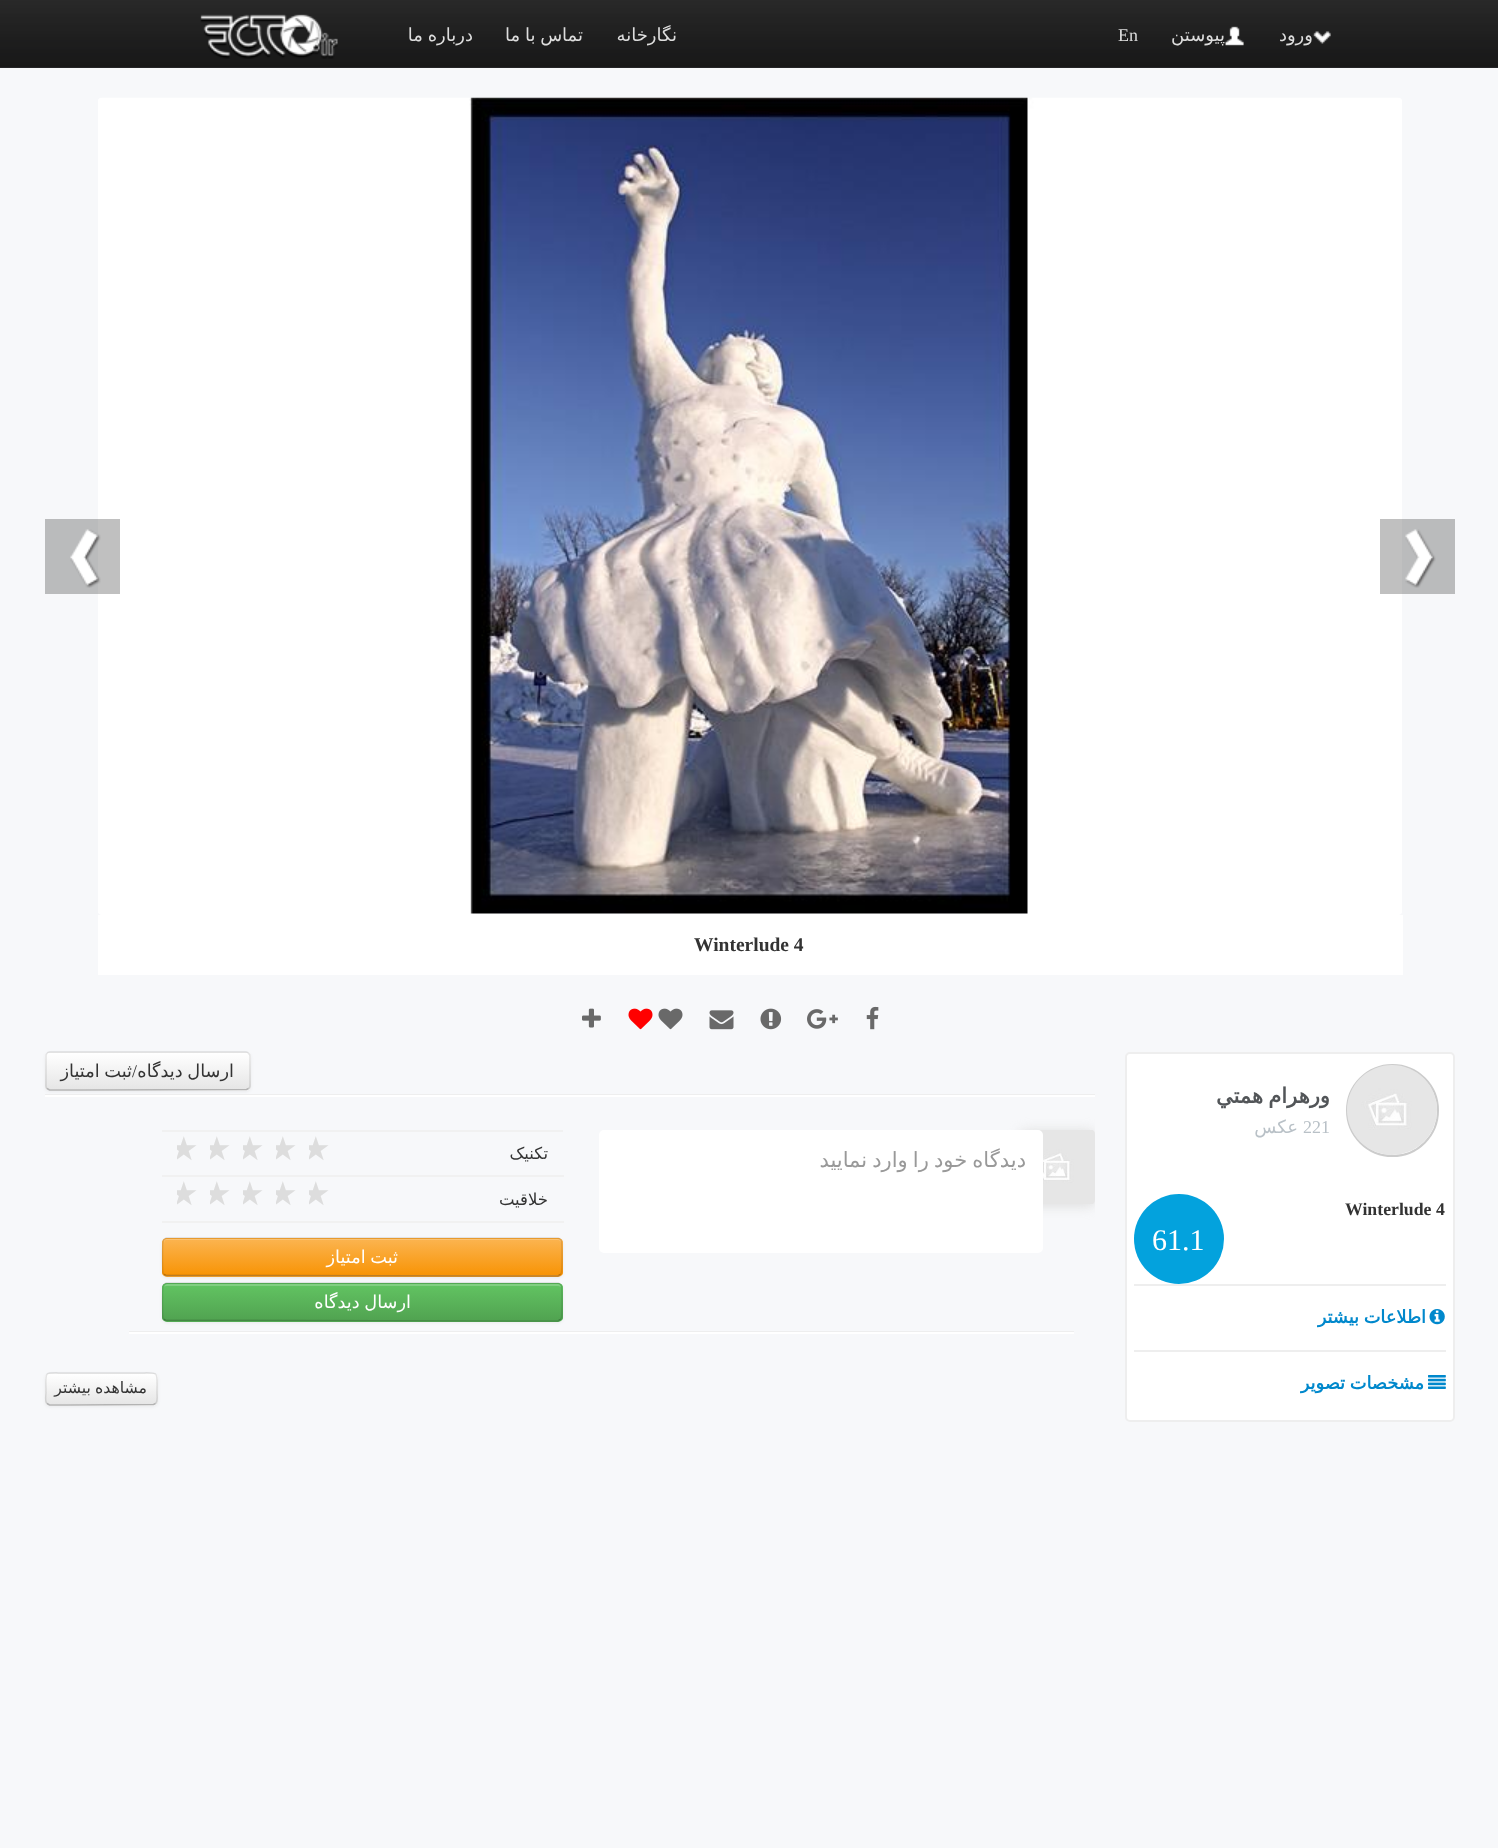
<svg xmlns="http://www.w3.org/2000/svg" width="1498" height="1848">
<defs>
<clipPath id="clip1"><rect x="45" y="1052" width="206" height="39" rx="5"/></clipPath>
<linearGradient id="g1" gradientUnits="userSpaceOnUse" x1="148" y1="1053" x2="148" y2="1089"><stop offset="0" stop-color="#fff"/><stop offset="1" stop-color="#e6e6e6"/></linearGradient>
<clipPath id="clip2"><rect x="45" y="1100" width="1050" height="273"/></clipPath>
<clipPath id="clip3"><rect x="309" y="1131" width="33" height="36"/></clipPath>
<clipPath id="clip4"><rect x="276" y="1131" width="33" height="36"/></clipPath>
<clipPath id="clip5"><rect x="243" y="1131" width="33" height="36"/></clipPath>
<clipPath id="clip6"><rect x="210" y="1131" width="33" height="36"/></clipPath>
<clipPath id="clip7"><rect x="177" y="1131" width="33" height="36"/></clipPath>
<clipPath id="clip8"><rect x="309" y="1176" width="33" height="38"/></clipPath>
<clipPath id="clip9"><rect x="276" y="1176" width="33" height="38"/></clipPath>
<clipPath id="clip10"><rect x="243" y="1176" width="33" height="38"/></clipPath>
<clipPath id="clip11"><rect x="210" y="1176" width="33" height="38"/></clipPath>
<clipPath id="clip12"><rect x="177" y="1176" width="33" height="38"/></clipPath>
<clipPath id="clip13"><rect x="162" y="1238" width="401" height="39" rx="5"/></clipPath>
<linearGradient id="g2" gradientUnits="userSpaceOnUse" x1="362" y1="1239" x2="362" y2="1275"><stop offset="0" stop-color="#fbb450"/><stop offset="1" stop-color="#f89406"/></linearGradient>
<clipPath id="clip14"><rect x="162" y="1283" width="401" height="39" rx="5"/></clipPath>
<linearGradient id="g3" gradientUnits="userSpaceOnUse" x1="362" y1="1284" x2="362" y2="1320"><stop offset="0" stop-color="#62c462"/><stop offset="1" stop-color="#51a351"/></linearGradient>
<clipPath id="clip15"><rect x="45" y="1373" width="113" height="33" rx="5"/></clipPath>
<linearGradient id="g4" gradientUnits="userSpaceOnUse" x1="101" y1="1374" x2="101" y2="1404"><stop offset="0" stop-color="#fff"/><stop offset="1" stop-color="#e6e6e6"/></linearGradient>
</defs>
<rect width="100%" height="100%" fill="#f7f8fa"/>
<rect y="67" width="1498" height="1" fill="#333"/>
<image x="0" y="0" width="1498" height="68" href="media/1.png"/>
<image x="1312" y="31" width="19" height="13" href="media/2.png"/>
<text x="1313" y="41" style="font-family:DejaVu Sans;font-size:18px;direction:rtl;fill:#ddd">ورود</text>
<image x="1225" y="26" width="19" height="20" href="media/3.png"/>
<text x="1225" y="41" style="font-family:DejaVu Sans;font-size:18px;direction:rtl;fill:#ddd">پیوستن</text>
<text x="1118" y="41" style="font-family:Liberation Serif;font-size:18px;fill:#ddd">En</text>
<text x="677" y="41" style="font-family:DejaVu Sans;font-size:18px;direction:rtl;fill:#ddd">نگارخانه</text>
<text x="583" y="41" word-spacing="-1" style="font-family:DejaVu Sans;font-size:18px;direction:rtl;fill:#ddd">تماس با ما</text>
<text x="473" y="41" word-spacing="-1" style="font-family:DejaVu Sans;font-size:18px;direction:rtl;fill:#ddd">درباره ما</text>
<image x="200" y="14" width="138" height="45" href="media/4.png"/>
<image x="98" y="97" width="1304" height="818" href="media/6.png"/>
<rect x="1380" y="519" width="75" height="75" fill="#1d1d1d47"/>
<image x="1405" y="529" width="31" height="59" href="media/5.png"/>
<rect x="45" y="519" width="75" height="75" fill="#1d1d1d47"/>
<image x="70" y="529" width="31" height="59" href="media/7.png"/>
<rect x="98" y="915" width="1305" height="60" fill="#fff"/>
<text x="694" y="951" style="font-family:Liberation Serif;font-size:19.5px;font-weight:bold;fill:#333">Winterlude 4</text>
<image x="866" y="1006" width="13" height="24" href="media/8.png"/>
<image x="807" y="1009" width="31" height="20" href="media/9.png"/>
<image x="760" y="1008" width="22" height="22" href="media/10.png"/>
<image x="709" y="1010" width="25" height="20" href="media/11.png"/>
<image x="658" y="1008" width="25" height="22" href="media/12.png"/>
<image x="628" y="1008" width="25" height="22" href="media/13.png"/>
<image x="582" y="1008" width="19" height="20" href="media/14.png"/>
<rect x="1126" y="1053" width="328" height="368" rx="4" fill="#fff" stroke="#eee" stroke-width="2"/>
<circle cx="1392.5" cy="1110.5" r="45.5" fill="none" stroke="#ccc" stroke-width="2"/>
<image x="1347" y="1065" width="90" height="90" href="media/15.png"/>
<text x="1330" y="1103" word-spacing="-1.5" style="font-family:DejaVu Sans;font-size:21px;font-weight:bold;direction:rtl;fill:#525558">ورهرام همتي</text>
<text x="1303" y="1133" style="font-family:Liberation Serif;font-size:18px;fill:#b9c1c7">221</text>
<text x="1298" y="1133" style="font-family:DejaVu Sans;font-size:18px;direction:rtl;fill:#b9c1c7">عکس</text>
<text x="1345" y="1215" style="font-family:Liberation Serif;font-size:17.75px;font-weight:bold;fill:#333">Winterlude 4</text>
<circle cx="1179" cy="1239" r="45" fill="#03a2dd"/>
<text x="1152" y="1250" style="font-family:Liberation Serif;font-size:30px;fill:#fff">61.1</text>
<rect x="1134" y="1284" width="312" height="2" fill="#eee"/>
<image x="1429" y="1309" width="16" height="16" href="media/16.png"/>
<text x="1426" y="1323" word-spacing="-1" style="font-family:DejaVu Sans;font-size:17.75px;font-weight:bold;direction:rtl;fill:#08c">اطلاعات بیشتر</text>
<rect x="1134" y="1350" width="312" height="2" fill="#eee"/>
<image x="1428" y="1375" width="18" height="14" href="media/17.png"/>
<text x="1424" y="1389" word-spacing="-1" style="font-family:DejaVu Sans;font-size:17.75px;font-weight:bold;direction:rtl;fill:#08c">مشخصات تصویر</text>
<rect x="45" y="1053" width="206" height="39" rx="5" fill="#0000000d" filter="blur(1.5px)"/>
<rect x="45" y="1052" width="206" height="39" rx="5" fill="#f5f5f5"/>
<g clip-path="url(#clip1)">
<rect x="45" y="1053" width="206" height="36" fill="url(#g1)"/>
</g>
<path d="M248.5 1088.5l-2 1l-164.5 .5h-32.5l-2.5-1.5" fill="none" stroke="#b3b3b3" stroke-width="1.5"/>
<path d="M47 1088.5c-1-.5-1-1.5-1-2.5v-30c0-1 0-2 1-2.5c.5-1 1.5-1.5 2.5-1.5h196.5c1 0 2 .5 2.5 1.5c1 .5 1.5 1.5 1.5 2.5v30c0 1-.5 2-1.5 2.5" fill="none" stroke="#0000001a" stroke-width="1.5"/>
<text x="234" y="1077" word-spacing="-1" style="font-family:DejaVu Sans;font-size:17.75px;direction:rtl;fill:#333">ارسال دیدگاه</text>
<text x="132" y="1077" word-spacing="-1" style="font-family:DejaVu Sans;font-size:17.75px;direction:rtl;fill:#333">ثبت امتیاز</text>
<text x="137" y="1077" style="font-family:Liberation Serif;font-size:17.75px;direction:rtl;fill:#333">/</text>
<rect x="45" y="1094" width="1050" height="1" fill="#eee"/>
<rect x="45" y="1095" width="1050" height="2" fill="#fff"/>
<g clip-path="url(#clip2)">
<rect x="1020" y="1131" width="75" height="75" rx="5" fill="#ddd" filter="blur(6px)"/>
</g>
<image x="1038" y="1130" width="57" height="74" href="media/18.png"/>
<rect x="600" y="1131" width="442" height="121" rx="4" fill="#fff" stroke="#fff" stroke-width="2"/>
<text x="1026" y="1167" word-spacing="-1.5" style="font-family:DejaVu Sans;font-size:21px;direction:rtl;fill:#999">دیدگاه خود را وارد نمایید</text>
<rect x="162" y="1130" width="401" height="2" fill="#f1f1f1"/>
<text x="548" y="1159" style="font-family:DejaVu Sans;font-size:16.5px;direction:rtl;fill:#333">تکنیک</text>
<rect x="162" y="1175" width="402" height="2" fill="#f1f1f1"/>
<g clip-path="url(#clip3)">
<text x="301" y="1160" style="font-family:DejaVu Sans;font-size:33px;fill:#ddd">★</text>
</g>
<g clip-path="url(#clip4)">
<text x="268" y="1160" style="font-family:DejaVu Sans;font-size:33px;fill:#ddd">★</text>
</g>
<g clip-path="url(#clip5)">
<text x="235" y="1160" style="font-family:DejaVu Sans;font-size:33px;fill:#ddd">★</text>
</g>
<g clip-path="url(#clip6)">
<text x="202" y="1160" style="font-family:DejaVu Sans;font-size:33px;fill:#ddd">★</text>
</g>
<g clip-path="url(#clip7)">
<text x="169" y="1160" style="font-family:DejaVu Sans;font-size:33px;fill:#ddd">★</text>
</g>
<text x="548" y="1205" style="font-family:DejaVu Sans;font-size:16.5px;direction:rtl;fill:#333">خلاقیت</text>
<rect x="162" y="1221" width="402" height="2" fill="#f1f1f1"/>
<g clip-path="url(#clip8)">
<text x="301" y="1205" style="font-family:DejaVu Sans;font-size:33px;fill:#ddd">★</text>
</g>
<g clip-path="url(#clip9)">
<text x="268" y="1205" style="font-family:DejaVu Sans;font-size:33px;fill:#ddd">★</text>
</g>
<g clip-path="url(#clip10)">
<text x="235" y="1205" style="font-family:DejaVu Sans;font-size:33px;fill:#ddd">★</text>
</g>
<g clip-path="url(#clip11)">
<text x="202" y="1205" style="font-family:DejaVu Sans;font-size:33px;fill:#ddd">★</text>
</g>
<g clip-path="url(#clip12)">
<text x="169" y="1205" style="font-family:DejaVu Sans;font-size:33px;fill:#ddd">★</text>
</g>
<rect x="162" y="1239" width="401" height="39" rx="5" fill="#0000000d" filter="blur(1.5px)"/>
<rect x="162" y="1238" width="401" height="39" rx="5" fill="#faa732"/>
<g clip-path="url(#clip13)">
<rect x="162" y="1239" width="401" height="36" fill="url(#g2)"/>
</g>
<path d="M166 1240h392c2 0 3 2 3 4v-2c0-2-1-3-3-3h-391c-2 0-3 1-3 3v2c0-2 1-4 2-4z" fill="#ffffff33"/>
<path d="M560.5 1274.5l-2.5 1.5l-392-.5l-2-1" fill="none" stroke="#00000040" stroke-width="1.5"/>
<path d="M164 1274.5l-1-2c-.5-2.5-1-31 .5-32.5c.5-1 2-1.5 3-2h391.5c1 .5 2.5 1 3 2c1.5 1.5 1 30 .5 32.5l-1 2" fill="none" stroke="#0000001a" stroke-width="1.5"/>
<text x="398" y="1263" word-spacing="-1" style="font-family:DejaVu Sans;font-size:17.75px;direction:rtl;fill:#fff">ثبت امتیاز</text>
<rect x="162" y="1284" width="401" height="39" rx="5" fill="#0000000d" filter="blur(1.5px)"/>
<rect x="162" y="1283" width="401" height="39" rx="5" fill="#5bb75b"/>
<g clip-path="url(#clip14)">
<rect x="162" y="1284" width="401" height="36" fill="url(#g3)"/>
</g>
<path d="M166 1286h392c2 0 3 1 3 2c0-2-1-4-3-4h-391l-2 1l-1 3c0-1 1-2 2-2z" fill="#81cf81"/>
<path d="M560.5 1319.5l-2.5 1.5l-392-.5l-2-1" fill="none" stroke="#00000040" stroke-width="1.5"/>
<path d="M164 1319.5l-1-2c-.5-2.5-1-31 .5-32.5c.5-1 2-1.5 3-2h391.5c1 .5 2.5 1 3 2c1.5 1.5 1 30 .5 32.5l-1 2" fill="none" stroke="#0000001a" stroke-width="1.5"/>
<text x="411" y="1308" word-spacing="-1" style="font-family:DejaVu Sans;font-size:17.75px;direction:rtl;fill:#fff">ارسال دیدگاه</text>
<rect x="129" y="1331" width="945" height="1" fill="#eee"/>
<rect x="129" y="1332" width="945" height="2" fill="#fff"/>
<rect x="45" y="1374" width="113" height="33" rx="5" fill="#0000000d" filter="blur(1.5px)"/>
<rect x="45" y="1373" width="113" height="33" rx="5" fill="#f5f5f5"/>
<g clip-path="url(#clip15)">
<rect x="45" y="1374" width="113" height="30" fill="url(#g4)"/>
</g>
<path d="M155.5 1403.5l-2 1l-86.5 .5h-17.5l-2.5-1.5" fill="none" stroke="#b3b3b3" stroke-width="1.5"/>
<path d="M47 1403.5c-2.5-2.5-1-7.5-1-10.5c0-23.5-4-20 21-20h69c24.5 0 21-3.5 21 20c0 3 1 8-1.5 10.5" fill="none" stroke="#0000001a" stroke-width="1.5"/>
<text x="147" y="1393" word-spacing="-1" style="font-family:DejaVu Sans;font-size:15.75px;direction:rtl;fill:#333">مشاهده بیشتر</text>
</svg>
